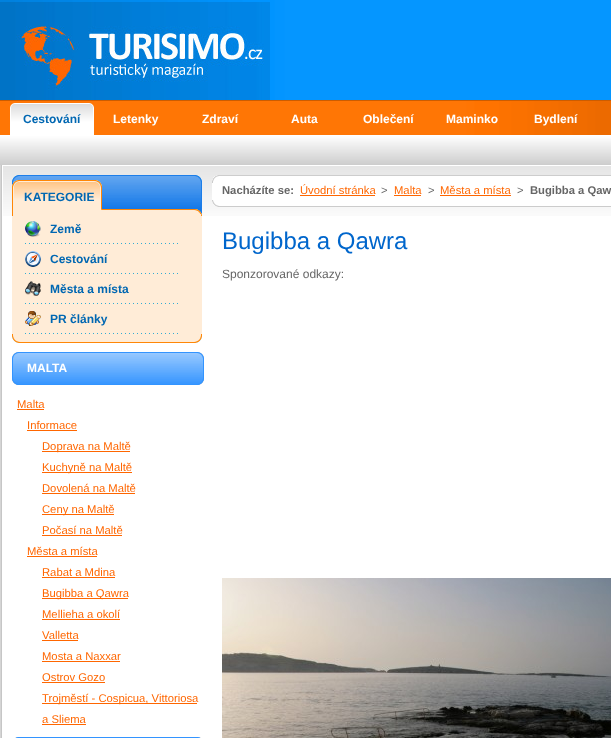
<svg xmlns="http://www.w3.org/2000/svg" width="611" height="738">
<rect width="100%" height="100%" fill="#fff"/>
<image x="0" y="0" width="611" height="100" href="media/1.png"/>
<image x="0" y="2" width="270" height="98" href="media/2.png"/>
<image x="0" y="101" width="611" height="34" href="media/3.png"/>
<rect y="100" width="611" height="1" fill="#cc5c00"/>
<image x="10" y="103" width="84" height="32" href="media/4.png"/>
<text x="23" y="123" style="font-family:Liberation Sans;font-size:12px;font-weight:bold;fill:#0067b2">Cestování</text>
<text x="113" y="123" style="font-family:Liberation Sans;font-size:12px;font-weight:bold;fill:#fff">Letenky</text>
<text x="202" y="123" style="font-family:Liberation Sans;font-size:12px;font-weight:bold;fill:#fff">Zdraví</text>
<text x="291" y="123" style="font-family:Liberation Sans;font-size:12px;font-weight:bold;fill:#fff">Auta</text>
<text x="363" y="123" style="font-family:Liberation Sans;font-size:12px;font-weight:bold;fill:#fff">Oblečení</text>
<text x="446" y="123" style="font-family:Liberation Sans;font-size:12px;font-weight:bold;fill:#fff">Maminko</text>
<text x="534" y="123" style="font-family:Liberation Sans;font-size:12px;font-weight:bold;fill:#fff">Bydlení</text>
<image x="0" y="135" width="611" height="30" href="media/5.png"/>
<image x="0" y="165" width="2" height="573" href="media/6.png"/>
<image x="3" y="166" width="608" height="50" href="media/7.png"/>
<rect x="12" y="216" width="190" height="118" fill="#ffecd7"/>
<image x="12" y="175" width="190" height="41" href="media/8.png"/>
<image x="12" y="334" width="190" height="9" href="media/9.png"/>
<text x="24" y="201" style="font-family:Liberation Sans;font-size:12px;font-weight:bold;fill:#0067b2">KATEGORIE</text>
<rect x="200" y="214" width="1" height="2" fill="#ffecd7"/>
<image x="25" y="243" width="153" height="1" href="media/10.png"/>
<image x="25" y="221" width="16" height="16" href="media/11.png"/>
<text x="50" y="233" style="font-family:Liberation Sans;font-size:12px;font-weight:bold;fill:#0067b2">Země</text>
<image x="25" y="273" width="153" height="1" href="media/10.png"/>
<image x="25" y="251" width="16" height="16" href="media/12.png"/>
<text x="50" y="263" style="font-family:Liberation Sans;font-size:12px;font-weight:bold;fill:#0067b2">Cestování</text>
<image x="25" y="303" width="153" height="1" href="media/10.png"/>
<image x="25" y="281" width="16" height="15" href="media/13.png"/>
<text x="50" y="293" style="font-family:Liberation Sans;font-size:12px;font-weight:bold;fill:#0067b2">Města a místa</text>
<image x="25" y="333" width="153" height="1" href="media/10.png"/>
<image x="25" y="311" width="16" height="15" href="media/14.png"/>
<text x="50" y="323" style="font-family:Liberation Sans;font-size:12px;font-weight:bold;fill:#0067b2">PR články</text>
<image x="12" y="352" width="192" height="33" href="media/15.png"/>
<text x="27" y="372" style="font-family:Liberation Sans;font-size:12px;font-weight:bold;fill:#fff">MALTA</text>
<text x="17" y="408" style="font-family:Liberation Sans;font-size:11.25px;fill:#f60">Malta</text>
<rect x="17" y="409" width="27" height="1" fill="#f60"/>
<text x="27" y="429" style="font-family:Liberation Sans;font-size:11.25px;fill:#f60">Informace</text>
<rect x="27" y="430" width="50" height="1" fill="#f60"/>
<rect x="42" y="451" width="88" height="1" fill="#f60"/>
<text x="42" y="450" style="font-family:Liberation Sans;font-size:11.25px;fill:#f60">Doprava na Maltě</text>
<rect x="42" y="472" width="90" height="1" fill="#f60"/>
<text x="42" y="471" style="font-family:Liberation Sans;font-size:11.25px;fill:#f60">Kuchyně na Maltě</text>
<text x="42" y="492" style="font-family:Liberation Sans;font-size:11.25px;fill:#f60">Dovolená na Maltě</text>
<rect x="42" y="493" width="93" height="1" fill="#f60"/>
<rect x="42" y="514" width="72" height="1" fill="#f60"/>
<text x="42" y="513" style="font-family:Liberation Sans;font-size:11.25px;fill:#f60">Ceny na Maltě</text>
<text x="42" y="534" style="font-family:Liberation Sans;font-size:11.25px;fill:#f60">Počasí na Maltě</text>
<rect x="42" y="535" width="80" height="1" fill="#f60"/>
<text x="27" y="555" style="font-family:Liberation Sans;font-size:11.25px;fill:#f60">Města a místa</text>
<rect x="27" y="556" width="70" height="1" fill="#f60"/>
<text x="42" y="576" style="font-family:Liberation Sans;font-size:11.25px;fill:#f60">Rabat a Mdina</text>
<rect x="42" y="577" width="73" height="1" fill="#f60"/>
<rect x="42" y="598" width="86" height="1" fill="#f60"/>
<text x="42" y="597" style="font-family:Liberation Sans;font-size:11.25px;fill:#f60">Bugibba a Qawra</text>
<text x="42" y="618" style="font-family:Liberation Sans;font-size:11.25px;fill:#f60">Mellieha a okolí</text>
<rect x="42" y="619" width="78" height="1" fill="#f60"/>
<text x="42" y="639" style="font-family:Liberation Sans;font-size:11.25px;fill:#f60">Valletta</text>
<rect x="42" y="640" width="36" height="1" fill="#f60"/>
<text x="42" y="660" style="font-family:Liberation Sans;font-size:11.25px;fill:#f60">Mosta a Naxxar</text>
<rect x="42" y="661" width="78" height="1" fill="#f60"/>
<text x="42" y="681" style="font-family:Liberation Sans;font-size:11.25px;fill:#f60">Ostrov Gozo</text>
<rect x="42" y="682" width="63" height="1" fill="#f60"/>
<rect x="42" y="703" width="155" height="1" fill="#f60"/>
<text x="42" y="702" style="font-family:Liberation Sans;font-size:11.25px;fill:#f60">Trojměstí - Cospicua, Vittoriosa</text>
<text x="42" y="723" style="font-family:Liberation Sans;font-size:11.25px;fill:#f60">a Sliema</text>
<rect x="42" y="724" width="44" height="1" fill="#f60"/>
<image x="15" y="737" width="186" height="1" href="media/16.png"/>
<image x="212" y="175" width="399" height="8" href="media/17.png"/>
<image x="212" y="200" width="399" height="7" href="media/18.png"/>
<rect x="212" y="183" width="399" height="17" fill="#fff"/>
<text x="222" y="194" style="font-family:Liberation Sans;font-size:11.25px;font-weight:bold;fill:#666">Nacházíte se:</text>
<text x="300" y="194" style="font-family:Liberation Sans;font-size:11.25px;fill:#f60">Úvodní stránka</text>
<rect x="300" y="195" width="75" height="1" fill="#f60"/>
<text x="381" y="194" style="font-family:Liberation Sans;font-size:11.25px;fill:#666">&gt;</text>
<text x="394" y="194" style="font-family:Liberation Sans;font-size:11.25px;fill:#f60">Malta</text>
<rect x="394" y="195" width="27" height="1" fill="#f60"/>
<text x="428" y="194" style="font-family:Liberation Sans;font-size:11.25px;fill:#666">&gt;</text>
<text x="440" y="194" style="font-family:Liberation Sans;font-size:11.25px;fill:#f60">Města a místa</text>
<rect x="440" y="195" width="71" height="1" fill="#f60"/>
<text x="517" y="194" style="font-family:Liberation Sans;font-size:11.25px;fill:#666">&gt;</text>
<text x="530" y="194" style="font-family:Liberation Sans;font-size:11.25px;font-weight:bold;fill:#666">Bugibba a Qaw</text>
<text x="222" y="249" style="font-family:Liberation Sans;font-size:24px;fill:#06c">Bugibba a Qawra</text>
<text x="222" y="278" style="font-family:Liberation Sans;font-size:12px;fill:#666">Sponzorované odkazy:</text>
<image x="222" y="578" width="389" height="160" href="media/19.png"/>
</svg>
